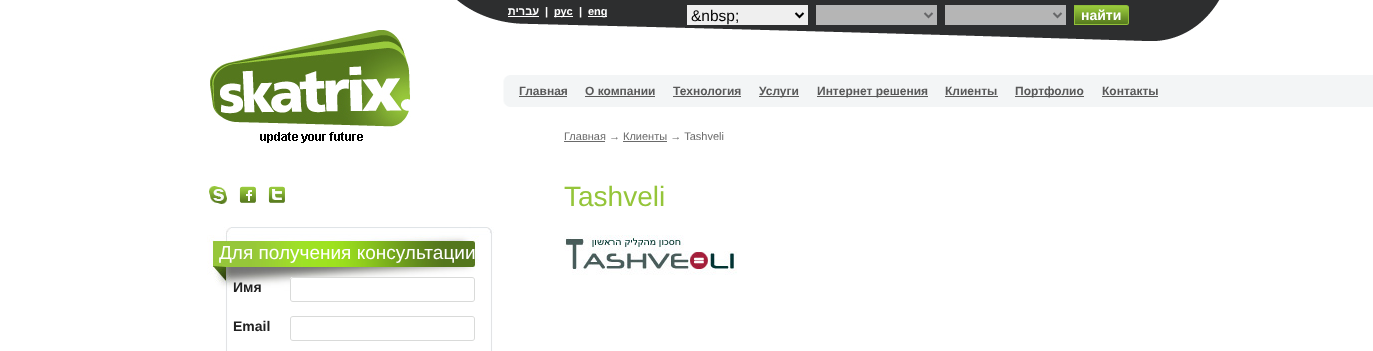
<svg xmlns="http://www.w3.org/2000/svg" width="1373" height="351">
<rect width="100%" height="100%" fill="#fff"/>
<image x="457" y="0" width="763" height="41" href="media/1.png"/>
<text x="539" y="15" style="font-family:Liberation Sans;font-size:11px;font-weight:bold;direction:rtl;fill:#fff">עברית</text>
<rect x="508" y="16" width="31" height="1" fill="#fff"/>
<text x="545" y="15" style="font-family:Liberation Sans;font-size:11px;font-weight:bold;fill:#fff">|</text>
<rect x="554" y="16" width="19" height="1" fill="#fff"/>
<text x="554" y="15" style="font-family:Liberation Sans;font-size:11px;font-weight:bold;fill:#fff">рус</text>
<text x="579" y="15" style="font-family:Liberation Sans;font-size:11px;font-weight:bold;fill:#fff">|</text>
<rect x="588" y="16" width="19" height="1" fill="#fff"/>
<text x="588" y="15" style="font-family:Liberation Sans;font-size:11px;font-weight:bold;fill:#fff">eng</text>
<rect x="687" y="5" width="121" height="20" fill="#efefef"/>
<path d="M795.5 13l4 4l4-4" fill="none" stroke="#000" stroke-width="2"/>
<text x="691" y="21" style="font-family:Liberation Sans;font-size:15.5px;fill:#000">&amp;nbsp;</text>
<rect x="816" y="5" width="121" height="20" fill="#b5b5b5"/>
<path d="M924.5 13l4 4l4-4" fill="none" stroke="#676768" stroke-width="2"/>
<rect x="945" y="5" width="121" height="20" fill="#b5b5b5"/>
<path d="M1053.5 13l4 4l4-4" fill="none" stroke="#676768" stroke-width="2"/>
<image x="1074" y="5" width="55" height="20" href="media/2.png"/>
<text x="1081" y="20" style="font-family:Liberation Sans;font-size:14px;font-weight:bold;fill:#fff">найти</text>
<image x="503" y="75" width="870" height="32" href="media/3.png"/>
<image x="210" y="30" width="201" height="113" href="media/4.png"/>
<text x="519" y="95" style="font-family:Liberation Sans;font-size:12px;font-weight:bold;fill:#595959">Главная</text>
<rect x="519" y="96" width="48" height="1" fill="#595959"/>
<text x="585" y="95" style="font-family:Liberation Sans;font-size:12px;font-weight:bold;fill:#595959">О компании</text>
<rect x="585" y="96" width="70" height="1" fill="#595959"/>
<text x="673" y="95" style="font-family:Liberation Sans;font-size:12px;font-weight:bold;fill:#595959">Технология</text>
<rect x="673" y="96" width="68" height="1" fill="#595959"/>
<rect x="759" y="96" width="40" height="1" fill="#595959"/>
<text x="759" y="95" style="font-family:Liberation Sans;font-size:12px;font-weight:bold;fill:#595959">Услуги</text>
<rect x="817" y="96" width="111" height="1" fill="#595959"/>
<text x="817" y="95" style="font-family:Liberation Sans;font-size:12px;font-weight:bold;fill:#595959">Интернет решения</text>
<text x="945" y="95" style="font-family:Liberation Sans;font-size:12px;font-weight:bold;fill:#595959">Клиенты</text>
<rect x="945" y="96" width="53" height="1" fill="#595959"/>
<rect x="1015" y="96" width="69" height="1" fill="#595959"/>
<text x="1015" y="95" style="font-family:Liberation Sans;font-size:12px;font-weight:bold;fill:#595959">Портфолио</text>
<text x="1102" y="95" style="font-family:Liberation Sans;font-size:12px;font-weight:bold;fill:#595959">Контакты</text>
<rect x="1102" y="96" width="56" height="1" fill="#595959"/>
<text x="564" y="140" style="font-family:Liberation Sans;font-size:11px;fill:#6a6a6a">Главная → Клиенты → Tashveli</text>
<rect x="564" y="141" width="41" height="1" fill="#6a6a6a"/>
<rect x="623" y="141" width="44" height="1" fill="#6a6a6a"/>
<text x="564" y="206" style="font-family:Liberation Sans;font-size:28px;fill:#95c53a">Tashveli</text>
<image x="564" y="235" width="173" height="40" href="media/5.png"/>
<image x="209" y="186" width="18" height="18" href="media/6.png"/>
<image x="239" y="186" width="17" height="17" href="media/7.png"/>
<image x="268" y="186" width="17" height="17" href="media/8.png"/>
<image x="207" y="227" width="287" height="124" href="media/9.png"/>
<text x="219" y="259" style="font-family:Liberation Sans;font-size:19px;fill:#fff">Для получения консультации</text>
<text x="233" y="292" style="font-family:Liberation Sans;font-size:14px;font-weight:bold;fill:#212121">Имя</text>
<image x="290" y="277" width="185" height="25" href="media/10.png"/>
<text x="233" y="331" style="font-family:Liberation Sans;font-size:14px;font-weight:bold;fill:#212121">Email</text>
<image x="290" y="316" width="185" height="25" href="media/11.png"/>
</svg>
